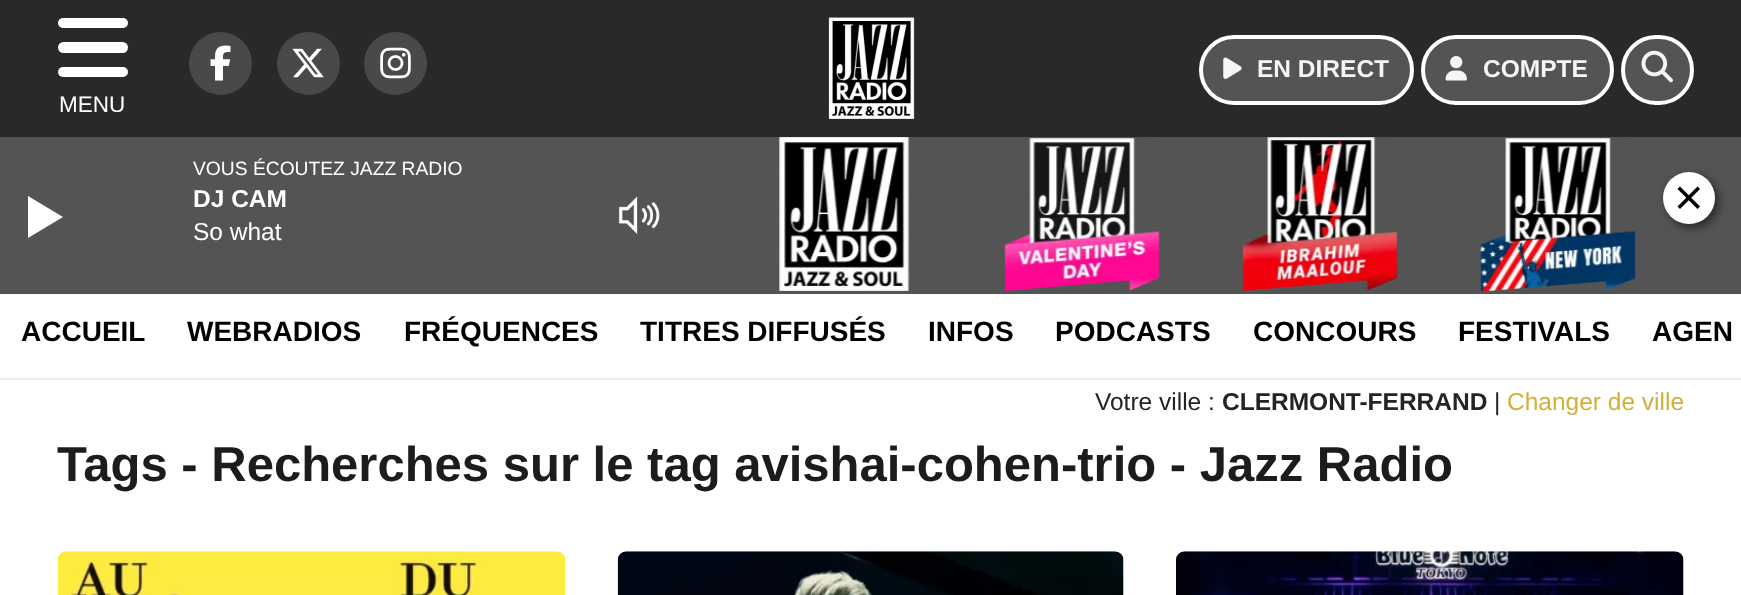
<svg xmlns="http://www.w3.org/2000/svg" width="1741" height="595">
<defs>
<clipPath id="clip1"><rect x="58" y="18" width="70" height="94"/></clipPath>
</defs>
<rect width="100%" height="100%" fill="#fff"/>
<rect width="1741" height="137" fill="#292929"/>
<circle cx="220.5" cy="63.5" r="31.5" fill="#494949"/>
<image x="210" y="45" width="21" height="36" href="media/1.png"/>
<circle cx="308.5" cy="63.5" r="31.5" fill="#494949"/>
<image x="292" y="48" width="32" height="30" href="media/2.png"/>
<circle cx="395.5" cy="63.5" r="31.5" fill="#494949"/>
<image x="380" y="47" width="31" height="32" href="media/3.png"/>
<image x="828" y="17" width="87" height="102" href="media/4.png"/>
<rect x="1201" y="37" width="211" height="66" rx="33" fill="#545454" stroke="#fff" stroke-width="4"/>
<image x="1223" y="57" width="19" height="22" href="media/5.png"/>
<text x="1257" y="77" style="font-family:Liberation Sans;font-size:24.5px;font-weight:bold;fill:#f5f5f5">EN DIRECT</text>
<rect x="1423" y="37" width="189" height="66" rx="33" fill="#545454" stroke="#fff" stroke-width="4"/>
<image x="1445" y="56" width="22" height="25" href="media/6.png"/>
<text x="1483" y="77" style="font-family:Liberation Sans;font-size:24.5px;font-weight:bold;fill:#f5f5f5">COMPTE</text>
<rect x="1623" y="37" width="69" height="66" rx="33" fill="#545454" stroke="#fff" stroke-width="4"/>
<image x="1641" y="50" width="32" height="33" href="media/7.png"/>
<rect x="58" y="18" width="70" height="10" rx="5" fill="#fff"/>
<rect x="58" y="42" width="70" height="11" rx="5.5" fill="#fff"/>
<rect x="58" y="67" width="70" height="10" rx="5" fill="#fff"/>
<g clip-path="url(#clip1)">
<text x="59" y="112" style="font-family:Liberation Sans;font-size:22.5px;fill:#fff">MENU</text>
</g>
<rect y="378" width="1741" height="2" fill="#eee"/>
<text x="21" y="341" style="font-family:Liberation Sans;font-size:28px;font-weight:bold;fill:#000">ACCUEIL</text>
<text x="187" y="341" style="font-family:Liberation Sans;font-size:28px;font-weight:bold;fill:#000">WEBRADIOS</text>
<text x="404" y="341" style="font-family:Liberation Sans;font-size:28px;font-weight:bold;fill:#000">FRÉQUENCES</text>
<text x="640" y="341" style="font-family:Liberation Sans;font-size:28px;font-weight:bold;fill:#000">TITRES DIFFUSÉS</text>
<text x="928" y="341" style="font-family:Liberation Sans;font-size:28px;font-weight:bold;fill:#000">INFOS</text>
<text x="1055" y="341" style="font-family:Liberation Sans;font-size:28px;font-weight:bold;fill:#000">PODCASTS</text>
<text x="1253" y="341" style="font-family:Liberation Sans;font-size:28px;font-weight:bold;fill:#000">CONCOURS</text>
<text x="1458" y="341" style="font-family:Liberation Sans;font-size:28px;font-weight:bold;fill:#000">FESTIVALS</text>
<text x="1652" y="341" style="font-family:Liberation Sans;font-size:28px;font-weight:bold;fill:#000">AGEN</text>
<text x="1095" y="410" style="font-family:Liberation Sans;font-size:24.5px;fill:#212529">Votre ville :</text>
<text x="1222" y="410" style="font-family:Liberation Sans;font-size:24.5px;font-weight:bold;fill:#212529">CLERMONT-FERRAND</text>
<text x="1494" y="410" style="font-family:Liberation Sans;font-size:24.5px;fill:#212529">|</text>
<text x="1507" y="410" style="font-family:Liberation Sans;font-size:24.5px;fill:#d4af37">Changer de ville</text>
<text x="57" y="481" style="font-family:Liberation Sans;font-size:49px;font-weight:bold;fill:#1c1c1c">Tags - Recherches sur le tag avishai-cohen-trio - Jazz Radio</text>
<image x="57" y="551" width="509" height="44" href="media/8.png"/>
<image x="617" y="551" width="507" height="44" href="media/9.png"/>
<image x="1176" y="551" width="508" height="44" href="media/10.png"/>
<rect y="137" width="1741" height="157" fill="#545454"/>
<text x="193" y="175" style="font-family:Liberation Sans;font-size:19.25px;fill:#fff">VOUS ÉCOUTEZ JAZZ RADIO</text>
<text x="193" y="207" style="font-family:Liberation Sans;font-size:24.5px;font-weight:bold;fill:#fff">DJ CAM</text>
<text x="193" y="240" style="font-family:Liberation Sans;font-size:24.5px;fill:#fff">So what</text>
<path d="M28 238v-42l35 21z" fill="#fff"/>
<image x="618" y="196" width="42" height="38" href="media/11.png"/>
<image x="779" y="137" width="131" height="154" href="media/12.png"/>
<image x="1004" y="138" width="156" height="153" href="media/13.png"/>
<image x="1242" y="137" width="156" height="154" href="media/14.png"/>
<image x="1480" y="138" width="156" height="153" href="media/15.png"/>
<rect x="1666" y="175" width="53" height="53" rx="26.5" fill="#00000080" filter="blur(4.5px)"/>
<circle cx="1689" cy="198" r="26" fill="#fff"/>
<path d="M1680 186.5l20 20l-2.5 2.5l-20-20z" fill="#000"/>
<path d="M1677.5 206.5l20-20l2.5 2.5l-20 20z" fill="#000"/>
</svg>
